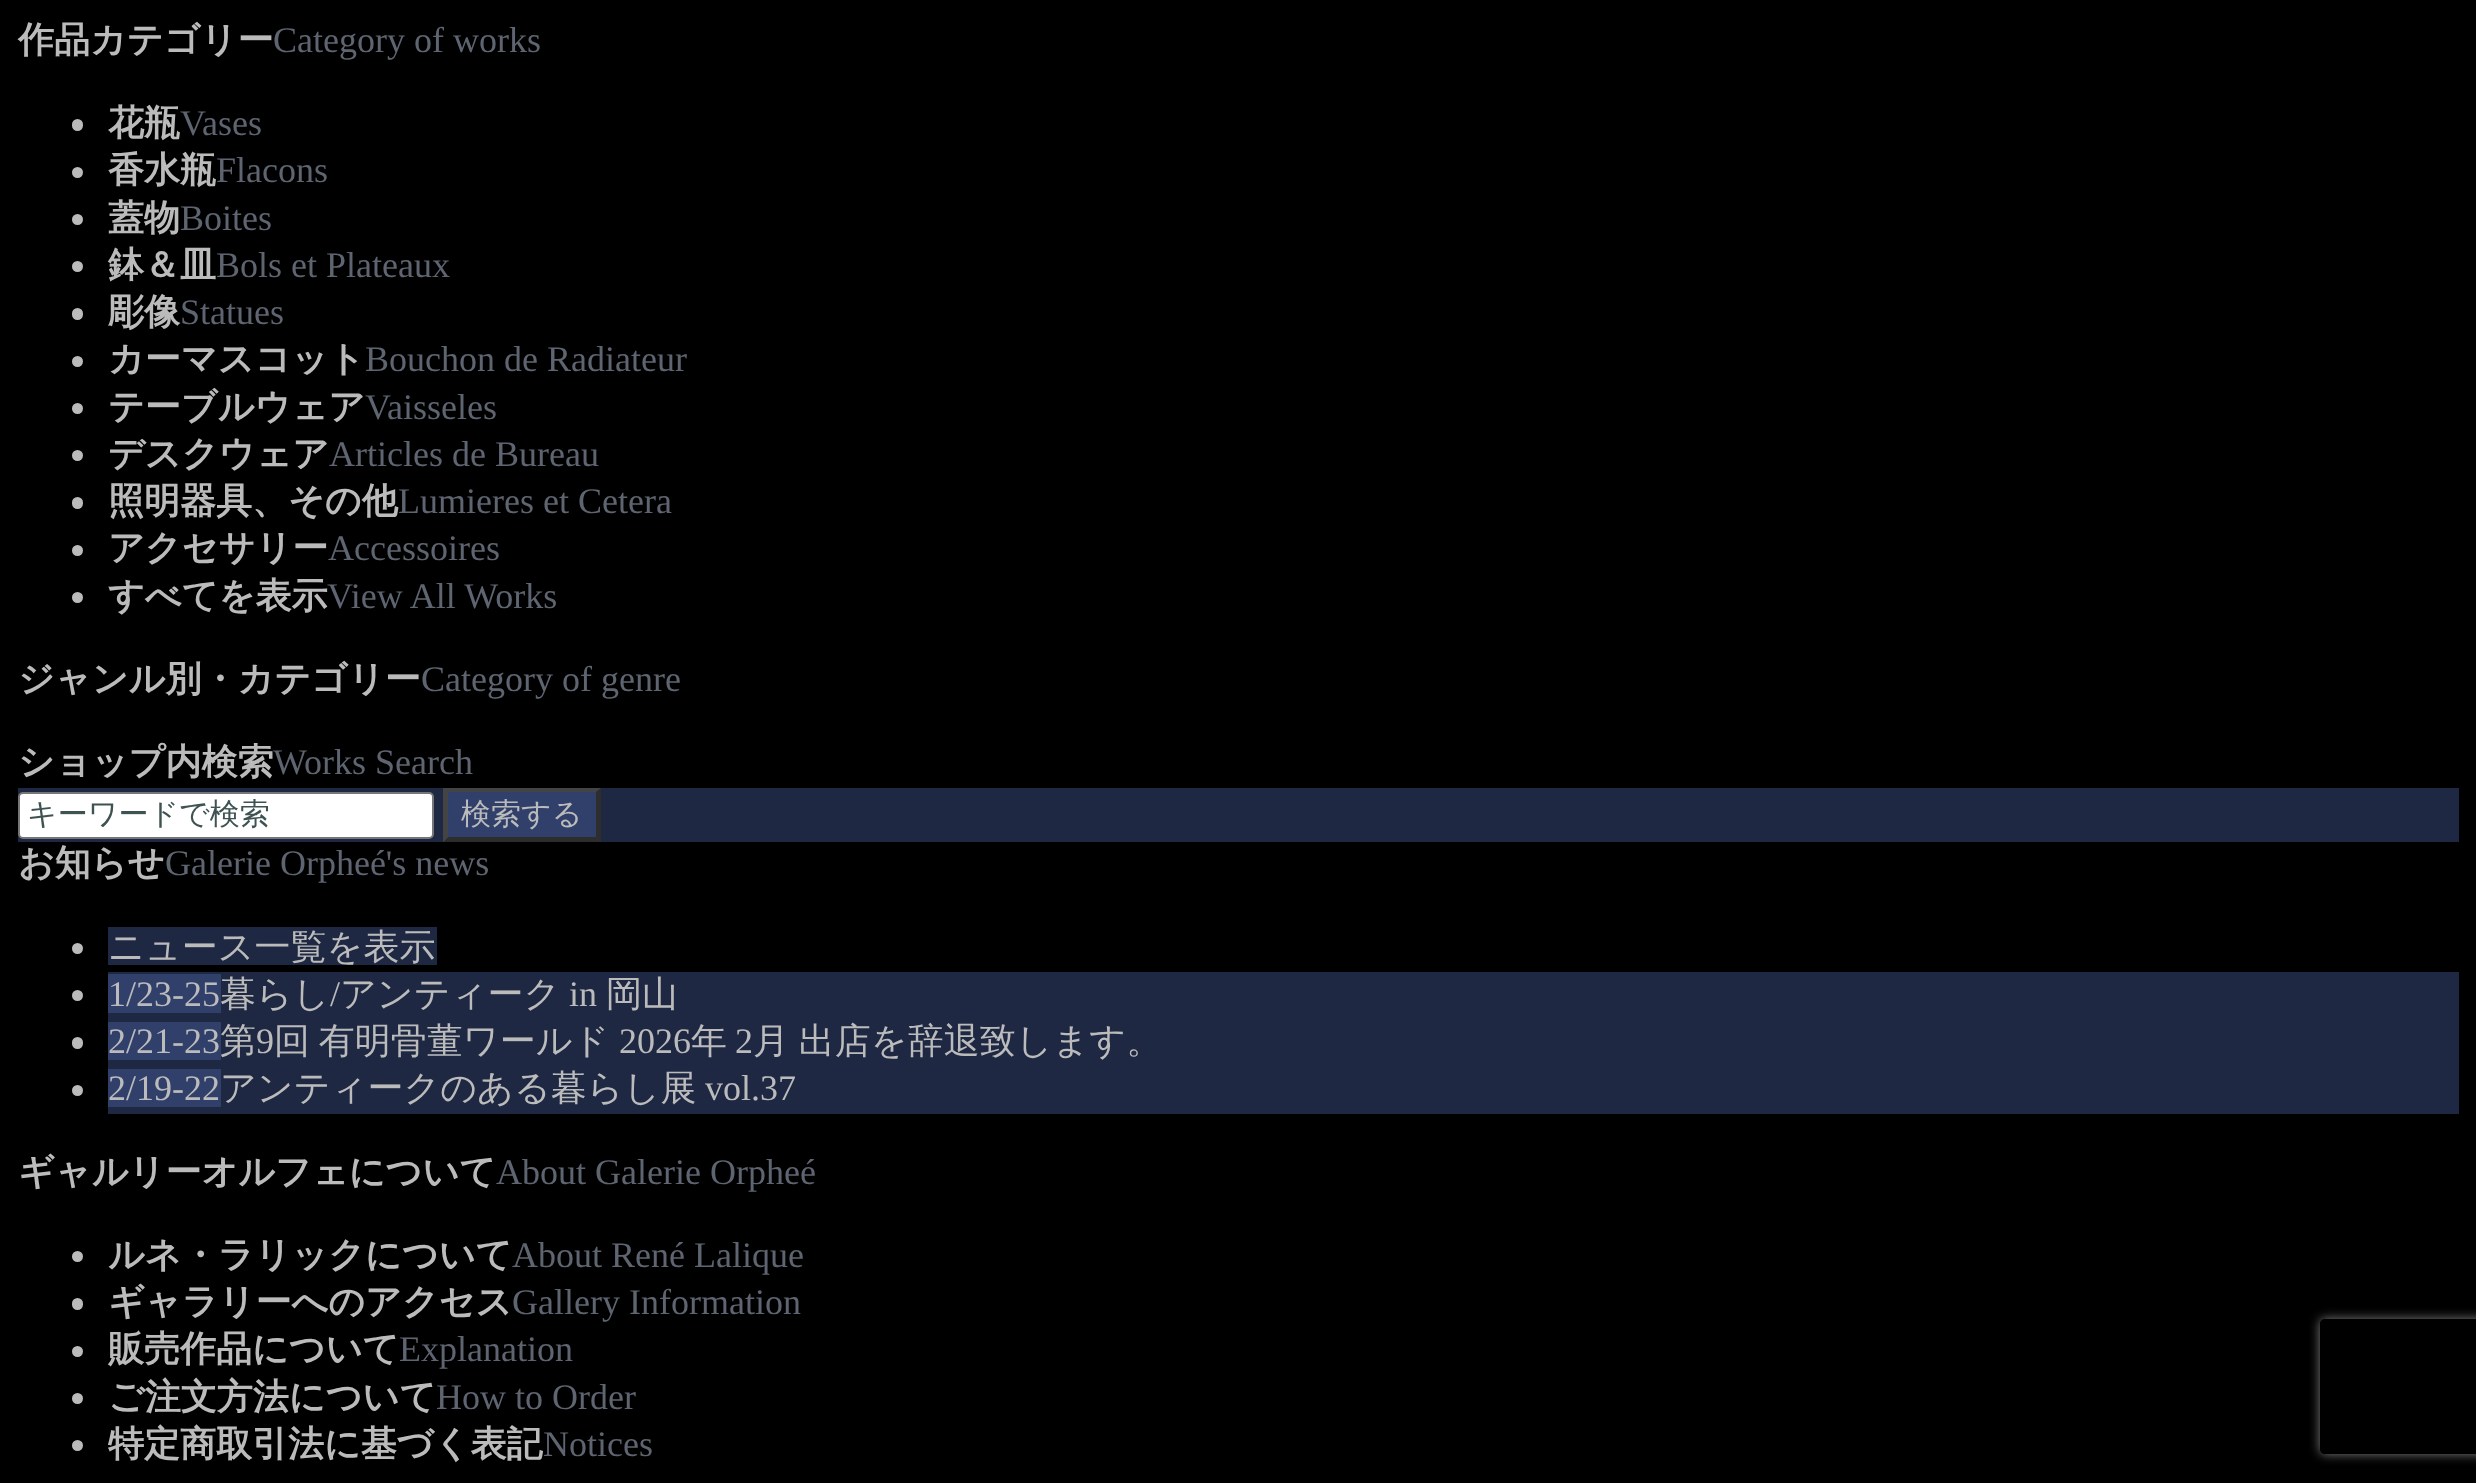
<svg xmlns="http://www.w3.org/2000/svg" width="2476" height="1483">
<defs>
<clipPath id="clip1"><path d="M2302 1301h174v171h-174zm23 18h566c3 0 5 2 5 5v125c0 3-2 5-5 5h-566c-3 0-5-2-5-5v-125c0-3 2-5 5-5z" clip-rule="evenodd"/></clipPath>
</defs>
<rect width="100%" height="100%" fill="#000"/>
<text x="18" y="52" style="font-family:WenQuanYi Zen Hei;font-size:36px;font-weight:bold;fill:#bbb">作品カテゴリー</text>
<text x="273" y="52" style="font-family:Liberation Serif;font-size:36px;fill:#5e6571">Category of works</text>
<rect x="72" y="119" width="11" height="12" rx="5.5" fill="#bbb"/>
<text x="108" y="135" style="font-family:WenQuanYi Zen Hei;font-size:36px;font-weight:bold;fill:#bbb">花瓶</text>
<text x="180" y="135" style="font-family:Liberation Serif;font-size:36px;fill:#5e6571">Vases</text>
<circle cx="77.5" cy="172.5" r="5.5" fill="#bbb"/>
<text x="108" y="182" style="font-family:WenQuanYi Zen Hei;font-size:36px;font-weight:bold;fill:#bbb">香水瓶</text>
<text x="216" y="182" style="font-family:Liberation Serif;font-size:36px;fill:#5e6571">Flacons</text>
<circle cx="77.5" cy="219.5" r="5.5" fill="#bbb"/>
<text x="108" y="230" style="font-family:WenQuanYi Zen Hei;font-size:36px;font-weight:bold;fill:#bbb">蓋物</text>
<text x="180" y="230" style="font-family:Liberation Serif;font-size:36px;fill:#5e6571">Boites</text>
<circle cx="77.5" cy="266.5" r="5.5" fill="#bbb"/>
<text x="108" y="277" style="font-family:WenQuanYi Zen Hei;font-size:36px;font-weight:bold;fill:#bbb">鉢＆皿</text>
<text x="216" y="277" style="font-family:Liberation Serif;font-size:36px;fill:#5e6571">Bols et Plateaux</text>
<rect x="72" y="308" width="11" height="12" rx="5.5" fill="#bbb"/>
<text x="108" y="324" style="font-family:WenQuanYi Zen Hei;font-size:36px;font-weight:bold;fill:#bbb">彫像</text>
<text x="180" y="324" style="font-family:Liberation Serif;font-size:36px;fill:#5e6571">Statues</text>
<circle cx="77.5" cy="361.5" r="5.5" fill="#bbb"/>
<text x="108" y="371" style="font-family:WenQuanYi Zen Hei;font-size:36px;font-weight:bold;fill:#bbb">カーマスコット</text>
<text x="365" y="371" style="font-family:Liberation Serif;font-size:36px;fill:#5e6571">Bouchon de Radiateur</text>
<circle cx="77.5" cy="408.5" r="5.5" fill="#bbb"/>
<text x="108" y="419" style="font-family:WenQuanYi Zen Hei;font-size:36px;font-weight:bold;fill:#bbb">テーブルウェア</text>
<text x="365" y="419" style="font-family:Liberation Serif;font-size:36px;fill:#5e6571">Vaisseles</text>
<circle cx="77.5" cy="455.5" r="5.5" fill="#bbb"/>
<text x="108" y="466" style="font-family:WenQuanYi Zen Hei;font-size:36px;font-weight:bold;fill:#bbb">デスクウェア</text>
<text x="329" y="466" style="font-family:Liberation Serif;font-size:36px;fill:#5e6571">Articles de Bureau</text>
<rect x="72" y="497" width="11" height="12" rx="5.5" fill="#bbb"/>
<text x="108" y="513" style="font-family:WenQuanYi Zen Hei;font-size:36px;font-weight:bold;fill:#bbb">照明器具、その他</text>
<text x="398" y="513" style="font-family:Liberation Serif;font-size:36px;fill:#5e6571">Lumieres et Cetera</text>
<circle cx="77.5" cy="550.5" r="5.5" fill="#bbb"/>
<text x="108" y="560" style="font-family:WenQuanYi Zen Hei;font-size:36px;font-weight:bold;fill:#bbb">アクセサリー</text>
<text x="328" y="560" style="font-family:Liberation Serif;font-size:36px;fill:#5e6571">Accessoires</text>
<circle cx="77.5" cy="597.5" r="5.5" fill="#bbb"/>
<text x="108" y="608" style="font-family:WenQuanYi Zen Hei;font-size:36px;font-weight:bold;fill:#bbb">すべてを表示</text>
<text x="327" y="608" style="font-family:Liberation Serif;font-size:36px;fill:#5e6571">View All Works</text>
<text x="18" y="691" style="font-family:WenQuanYi Zen Hei;font-size:36px;font-weight:bold;fill:#bbb">ジャンル別・カテゴリー</text>
<text x="421" y="691" style="font-family:Liberation Serif;font-size:36px;fill:#5e6571">Category of genre</text>
<text x="18" y="774" style="font-family:WenQuanYi Zen Hei;font-size:36px;font-weight:bold;fill:#bbb">ショップ内検索</text>
<text x="273" y="774" style="font-family:Liberation Serif;font-size:36px;fill:#5e6571">Works Search</text>
<rect x="18" y="788" width="2441" height="54" fill="#1e2843"/>
<rect x="19" y="793" width="414" height="45" rx="4" fill="#fff" stroke="#767676" stroke-width="2"/>
<text x="27" y="824" style="font-family:WenQuanYi Zen Hei;font-size:30px;font-weight:500;fill:#3f5252">キーワードで検索</text>
<rect x="443" y="788" width="158" height="54" fill="#30406b"/>
<path d="M443 788h158l-5 4h-148z" fill="#444"/>
<path d="M601 788v54l-5-5v-45z" fill="#2d2d2d"/>
<path d="M601 842h-158l5-5h148z" fill="#2d2d2d"/>
<path d="M443 842v-54l5 4v45z" fill="#444"/>
<text x="461" y="824" style="font-family:WenQuanYi Zen Hei;font-size:30px;font-weight:500;fill:#bbb">検索する</text>
<text x="18" y="875" style="font-family:WenQuanYi Zen Hei;font-size:36px;font-weight:bold;fill:#bbb">お知らせ</text>
<text x="165" y="875" style="font-family:Liberation Serif;font-size:36px;fill:#5e6571">Galerie Orpheé's news</text>
<circle cx="77.5" cy="948.5" r="5.5" fill="#bbb"/>
<rect x="108" y="927" width="329" height="38" fill="#1e2843"/>
<text x="108" y="959" style="font-family:WenQuanYi Zen Hei;font-size:36px;font-weight:500;fill:#bbb">ニュース一覧を表示</text>
<rect x="108" y="972" width="2351" height="142" fill="#1e2843"/>
<circle cx="77.5" cy="995.5" r="5.5" fill="#bbb"/>
<rect x="108" y="974" width="113" height="39" fill="#30406b"/>
<text x="108" y="1006" style="font-family:Liberation Serif;font-size:36px;fill:#bbb">1/23-25</text>
<text x="220" y="1006" style="font-family:WenQuanYi Zen Hei;font-size:36px;font-weight:500;fill:#bbb">暮らし</text>
<text x="330" y="1006" style="font-family:Liberation Serif;font-size:36px;fill:#bbb">/</text>
<text x="340" y="1006" style="font-family:WenQuanYi Zen Hei;font-size:36px;font-weight:500;fill:#bbb">アンティーク</text>
<text x="569" y="1006" style="font-family:Liberation Serif;font-size:36px;fill:#bbb">in</text>
<text x="606" y="1006" style="font-family:WenQuanYi Zen Hei;font-size:36px;font-weight:500;fill:#bbb">岡山</text>
<rect x="72" y="1037" width="11" height="12" rx="5.5" fill="#bbb"/>
<rect x="108" y="1022" width="113" height="38" fill="#30406b"/>
<text x="108" y="1053" style="font-family:Liberation Serif;font-size:36px;fill:#bbb">2/21-23</text>
<text x="220" y="1053" style="font-family:WenQuanYi Zen Hei;font-size:36px;font-weight:500;fill:#bbb">第</text>
<text x="256" y="1053" style="font-family:Liberation Serif;font-size:36px;fill:#bbb">9</text>
<text x="274" y="1053" word-spacing="-2" style="font-family:WenQuanYi Zen Hei;font-size:36px;font-weight:500;fill:#bbb">回 有明骨董ワールド</text>
<text x="619" y="1053" style="font-family:Liberation Serif;font-size:36px;fill:#bbb">2026</text>
<text x="691" y="1053" style="font-family:WenQuanYi Zen Hei;font-size:36px;font-weight:500;fill:#bbb">年</text>
<text x="735" y="1053" style="font-family:Liberation Serif;font-size:36px;fill:#bbb">2</text>
<text x="753" y="1053" word-spacing="-1" style="font-family:WenQuanYi Zen Hei;font-size:36px;font-weight:500;fill:#bbb">月 出店を辞退致します。</text>
<circle cx="77.5" cy="1090.5" r="5.5" fill="#bbb"/>
<rect x="108" y="1069" width="113" height="38" fill="#30406b"/>
<text x="108" y="1100" style="font-family:Liberation Serif;font-size:36px;fill:#bbb">2/19-22</text>
<text x="220" y="1100" style="font-family:WenQuanYi Zen Hei;font-size:36px;font-weight:500;fill:#bbb">アンティークのある暮らし展</text>
<text x="705" y="1100" style="font-family:Liberation Serif;font-size:36px;fill:#bbb">vol.37</text>
<text x="18" y="1184" style="font-family:WenQuanYi Zen Hei;font-size:36px;font-weight:bold;fill:#bbb">ギャルリーオルフェについて</text>
<text x="496" y="1184" style="font-family:Liberation Serif;font-size:36px;fill:#5e6571">About Galerie Orpheé</text>
<circle cx="77.5" cy="1256.5" r="5.5" fill="#bbb"/>
<text x="108" y="1267" style="font-family:WenQuanYi Zen Hei;font-size:36px;font-weight:bold;fill:#bbb">ルネ・ラリックについて</text>
<text x="512" y="1267" style="font-family:Liberation Serif;font-size:36px;fill:#5e6571">About René Lalique</text>
<rect x="72" y="1298" width="11" height="12" rx="5.5" fill="#bbb"/>
<text x="108" y="1314" style="font-family:WenQuanYi Zen Hei;font-size:36px;font-weight:bold;fill:#bbb">ギャラリーへのアクセス</text>
<text x="512" y="1314" style="font-family:Liberation Serif;font-size:36px;fill:#5e6571">Gallery Information</text>
<circle cx="77.5" cy="1351.5" r="5.5" fill="#bbb"/>
<text x="108" y="1361" style="font-family:WenQuanYi Zen Hei;font-size:36px;font-weight:bold;fill:#bbb">販売作品について</text>
<text x="399" y="1361" style="font-family:Liberation Serif;font-size:36px;fill:#5e6571">Explanation</text>
<circle cx="77.5" cy="1398.5" r="5.5" fill="#bbb"/>
<text x="108" y="1409" style="font-family:WenQuanYi Zen Hei;font-size:36px;font-weight:bold;fill:#bbb">ご注文方法について</text>
<text x="436" y="1409" style="font-family:Liberation Serif;font-size:36px;fill:#5e6571">How to Order</text>
<circle cx="77.5" cy="1445.5" r="5.5" fill="#bbb"/>
<text x="108" y="1456" style="font-family:WenQuanYi Zen Hei;font-size:36px;font-weight:bold;fill:#bbb">特定商取引法に基づく表記</text>
<text x="543" y="1456" style="font-family:Liberation Serif;font-size:36px;fill:#5e6571">Notices</text>
<g clip-path="url(#clip1)">
<rect x="2320" y="1319" width="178" height="135" rx="5" fill="#808080" filter="blur(5.5px)"/>
</g>
</svg>
